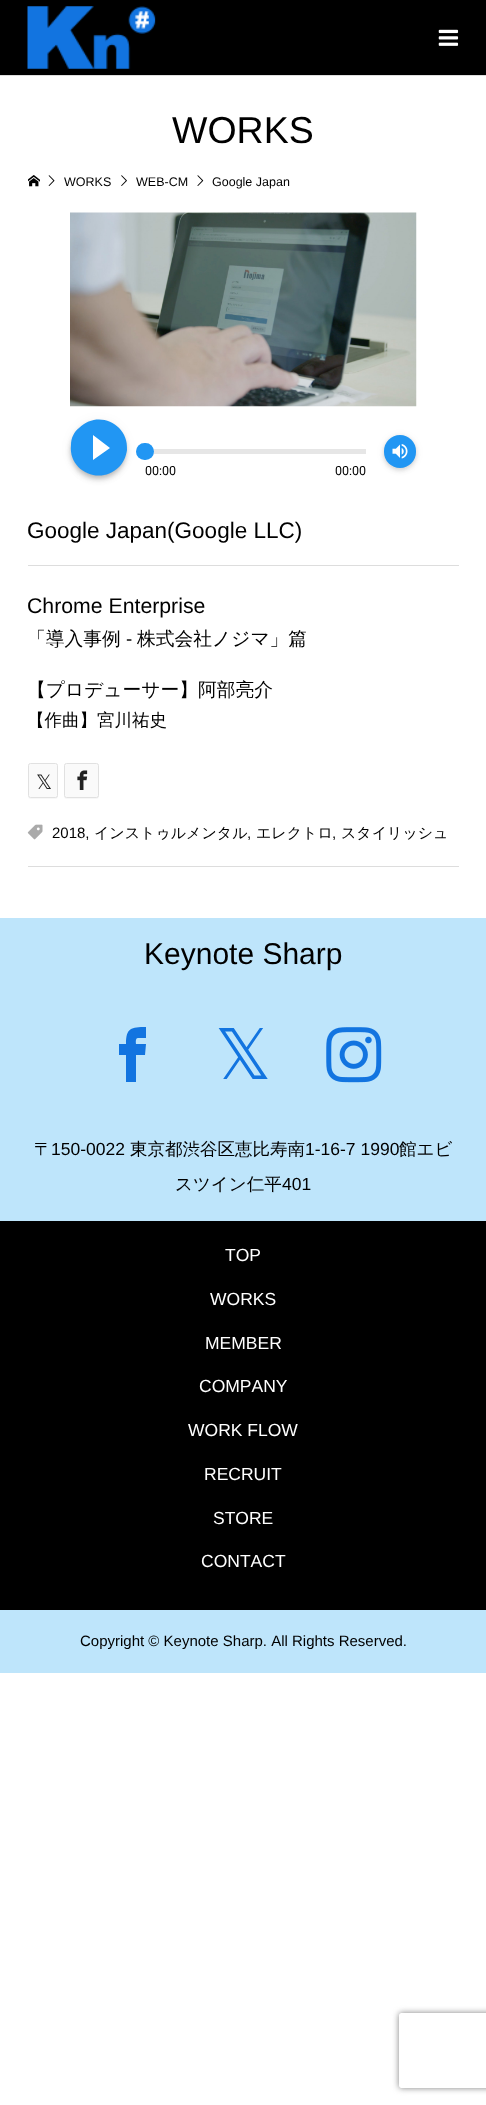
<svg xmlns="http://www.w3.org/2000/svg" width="486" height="2105">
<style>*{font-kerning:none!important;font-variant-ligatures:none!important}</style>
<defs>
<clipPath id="clip1"><path d="M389 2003h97v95h-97zm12.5 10h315c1.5 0 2.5 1 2.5 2.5v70c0 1.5-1 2.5-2.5 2.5h-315c-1.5 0-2.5-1-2.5-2.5v-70c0-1.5 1-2.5 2.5-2.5z" clip-rule="evenodd"/></clipPath>
</defs>
<rect width="100%" height="100%" fill="#fff"/>
<rect width="486" height="75" fill="#000"/>
<image x="27" y="6" width="129" height="63" href="media/1.png"/>
<image x="438" y="29" width="21" height="17" href="media/2.png"/>
<rect y="75" width="486" height="1" fill="#ddd"/>
<text x="172" y="143" style="font-family:Liberation Sans;font-size:37.5px;fill:#000">WORKS</text>
<image x="28" y="175" width="12" height="12" href="media/3.png"/>
<image x="48" y="175" width="7" height="11" href="media/4.png"/>
<text x="64" y="186" style="font-family:Liberation Sans;font-size:12.5px;fill:#000">WORKS</text>
<image x="121" y="175" width="6" height="11" href="media/5.png"/>
<text x="136" y="186" style="font-family:Liberation Sans;font-size:12.5px;fill:#000">WEB-CM</text>
<image x="197" y="175" width="7" height="11" href="media/6.png"/>
<text x="212" y="186" style="font-family:Liberation Sans;font-size:12.5px;fill:#000">Google Japan</text>
<image x="70" y="212" width="347" height="195" href="media/7.png"/>
<rect x="71" y="423" width="55" height="55" rx="27.5" fill="#00000033" filter="blur(2.5px)"/>
<rect x="71" y="421" width="55" height="55" rx="27.5" fill="#0000000d" filter="blur(6px)"/>
<rect x="71" y="425" width="55" height="55" rx="27.5" fill="#00000017" filter="blur(3px)"/>
<circle cx="98.5" cy="447.5" r="27.5" fill="#fff"/>
<path d="M93 460l17-12l-17-13zm-14-32c19-19 50-4 48 22c-1 7-4 13-8 17c-19 19-51 4-48-22c0-7 3-13 8-17z" fill="#2196f3"/>
<rect x="145" y="449" width="221" height="5" fill="#e6e6e6"/>
<rect x="136" y="443" width="18" height="17" rx="8.5" fill="#2196f3"/>
<text x="145" y="475" style="font-family:Roboto;font-size:12.5px;fill:#000">00:00</text>
<text x="335" y="475" style="font-family:Roboto;font-size:12.5px;fill:#000">00:00</text>
<rect x="384" y="436" width="32" height="33" rx="16" fill="#0000001a" filter="blur(2px)"/>
<rect x="384" y="436" width="32" height="33" rx="16" fill="#0000000d" filter="blur(4px)"/>
<rect x="384" y="439" width="32" height="32" rx="16" fill="#00000012" filter="blur(2.5px)"/>
<rect x="384" y="435" width="32" height="33" rx="16" fill="#2196f3"/>
<image x="392" y="444" width="16" height="15" href="media/8.png"/>
<text x="27" y="538" style="font-family:Liberation Sans;font-size:22.5px;fill:#000">Google Japan(Google LLC)</text>
<rect x="28" y="565" width="431" height="1" fill="#ddd"/>
<rect x="28" y="866" width="431" height="1" fill="#ddd"/>
<text x="27" y="613" style="font-family:Liberation Sans;font-size:21.25px;fill:#000">Chrome Enterprise</text>
<text x="27" y="645" style="font-family:WenQuanYi Zen Hei;font-size:18.75px;font-weight:500;fill:#000">「導入事例</text>
<text x="126" y="645" style="font-family:Liberation Sans;font-size:18.75px;fill:#000">-</text>
<text x="137" y="645" style="font-family:WenQuanYi Zen Hei;font-size:18.75px;font-weight:500;fill:#000">株式会社ノジマ」篇</text>
<text x="27" y="696" style="font-family:WenQuanYi Zen Hei;font-size:18.75px;font-weight:500;fill:#000">【プロデューサー】阿部亮介</text>
<text x="27" y="726" style="font-family:WenQuanYi Zen Hei;font-size:17.5px;font-weight:500;fill:#000">【作曲】宮川祐史</text>
<path d="M28 796.5c0 1.5 1 2.5 2.5 2.5h25c1.5 0 2.5-1 2.5-2.5v-30l-.5-1.5v30c0 1.5-1 2.5-2.5 2.5h-25c-1 0-1.5-.5-2-1z" fill="#f7f7f7"/>
<rect x="28.5" y="763.5" width="29" height="34" rx="2" fill="#fafafa" stroke="#e1e1e1"/>
<text x="36" y="789" style="font-family:DejaVu Sans;font-size:20px;fill:#222">𝕏</text>
<path d="M64 796v.5c0 1.5 1 2.5 2.5 2.5h30c1.5 0 2.5-1 2.5-2.5v-30v-1v29.5c0 1.5-1.5 2.5-3 2.5h-30c-.5 0-1.5-.5-2-1.5z" fill="#f7f7f7"/>
<rect x="64.5" y="763.5" width="34" height="34" rx="2" fill="#fafafa" stroke="#e1e1e1"/>
<image x="77" y="770" width="11" height="20" href="media/9.png"/>
<image x="27" y="824" width="16" height="16" href="media/10.png"/>
<text x="52" y="838" style="font-family:Liberation Sans;font-size:15px;fill:#000">2018,</text>
<text x="94" y="838" style="font-family:WenQuanYi Zen Hei;font-size:15px;font-weight:500;fill:#000">インストゥルメンタル</text>
<text x="247" y="838" style="font-family:Liberation Sans;font-size:15px;fill:#000">,</text>
<text x="256" y="838" style="font-family:WenQuanYi Zen Hei;font-size:15px;font-weight:500;fill:#000">エレクトロ</text>
<text x="332" y="838" style="font-family:Liberation Sans;font-size:15px;fill:#000">,</text>
<text x="341" y="838" style="font-family:WenQuanYi Zen Hei;font-size:15px;font-weight:500;fill:#000">スタイリッシュ</text>
<rect y="918" width="486" height="303" fill="#bee5fb"/>
<text x="144" y="964" style="font-family:Liberation Sans;font-size:30px;fill:#000">Keynote Sharp</text>
<path d="M138 1038h8v-11c-15 0-20 1-20 17h-7v11h7v27h10v-27h9l1-11h-10c0-1-1-6 2-6z" fill="#1274e0"/>
<text x="215" y="1079" style="font-family:DejaVu Sans;font-size:70px;fill:#1274e0">𝕏</text>
<image x="326" y="1027" width="56" height="56" href="media/11.png"/>
<text x="34" y="1155" style="font-family:WenQuanYi Zen Hei;font-size:17.5px;font-weight:500;fill:#000">〒</text>
<text x="51" y="1155" style="font-family:Liberation Sans;font-size:17.5px;fill:#000">150-0022</text>
<text x="130" y="1155" style="font-family:WenQuanYi Zen Hei;font-size:17.5px;font-weight:500;fill:#000">東京都渋谷区恵比寿南</text>
<text x="305" y="1155" style="font-family:Liberation Sans;font-size:17.5px;fill:#000">1-16-7 1990</text>
<text x="399" y="1155" style="font-family:WenQuanYi Zen Hei;font-size:17.5px;font-weight:500;fill:#000">館エビ</text>
<text x="175" y="1190" style="font-family:WenQuanYi Zen Hei;font-size:17.5px;font-weight:500;fill:#000">スツイン仁平</text>
<text x="282" y="1190" style="font-family:Liberation Sans;font-size:17.5px;fill:#000">401</text>
<rect y="1221" width="486" height="389" fill="#000"/>
<text x="225" y="1261" style="font-family:Liberation Sans;font-size:17.5px;fill:#fff">TOP</text>
<text x="210" y="1305" style="font-family:Liberation Sans;font-size:17.5px;fill:#fff">WORKS</text>
<text x="205" y="1349" style="font-family:Liberation Sans;font-size:17.5px;fill:#fff">MEMBER</text>
<text x="199" y="1392" style="font-family:Liberation Sans;font-size:17.5px;fill:#fff">COMPANY</text>
<text x="188" y="1436" style="font-family:Liberation Sans;font-size:17.5px;fill:#fff">WORK FLOW</text>
<text x="204" y="1480" style="font-family:Liberation Sans;font-size:17.5px;fill:#fff">RECRUIT</text>
<text x="213" y="1524" style="font-family:Liberation Sans;font-size:17.5px;fill:#fff">STORE</text>
<text x="201" y="1567" style="font-family:Liberation Sans;font-size:17.5px;fill:#fff">CONTACT</text>
<rect y="1610" width="486" height="63" fill="#bee5fb"/>
<text x="80" y="1646" style="font-family:Liberation Sans;font-size:15px;fill:#000">Copyright © Keynote Sharp. All Rights Reserved.</text>
<g clip-path="url(#clip1)">
<rect x="399" y="2013" width="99" height="75" rx="2.5" fill="#808080" filter="blur(3px)"/>
</g>
</svg>
